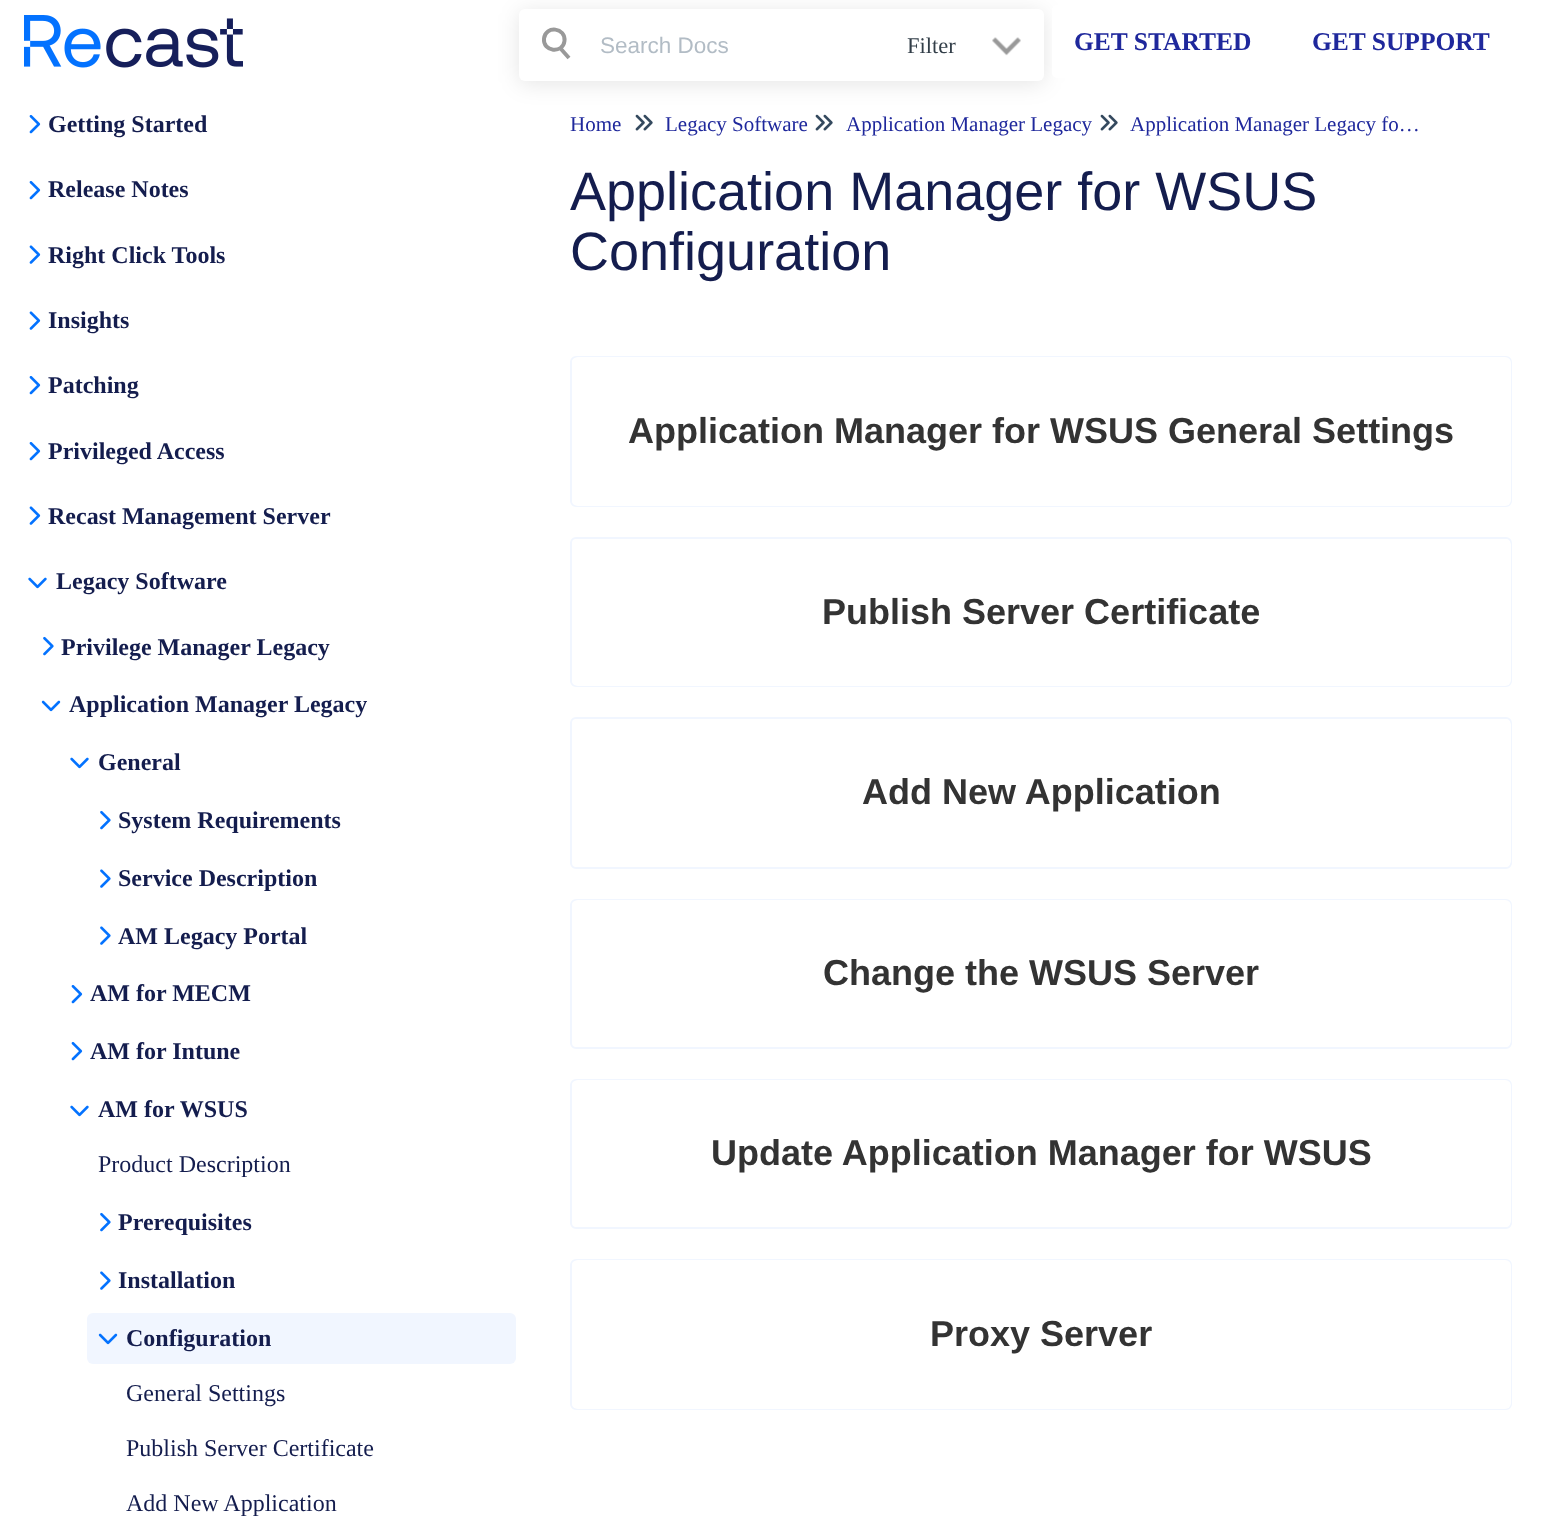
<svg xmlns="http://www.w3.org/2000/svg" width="1542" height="1525">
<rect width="100%" height="100%" fill="#fff"/>
<image x="24" y="15" width="219" height="53" href="media/1.png"/>
<image x="635" y="114" width="18" height="17" href="media/10.png"/>
<image x="815" y="114" width="18" height="17" href="media/10.png"/>
<rect x="519" y="12" width="525" height="72" rx="6" fill="#0000001a" filter="blur(11px)"/>
<rect x="519" y="9" width="525" height="72" rx="6" fill="#fff"/>
<path d="M564.5 41c-1.5 13-22 11-20.5-2.5c1.5-13.5 22-11 20.5 2.5zm-3.5 8l8 9" fill="none" stroke="#999" stroke-width="3.9"/>
<text x="600" y="53" style="font-family:Liberation Sans;font-size:22.5px;fill:#b2bcc5">Search Docs</text>
<text x="907" y="53" style="font-family:Liberation Serif;font-size:22.5px;fill:#323e48">Filter</text>
<image x="992" y="37" width="29" height="19" href="media/2.png"/>
<rect x="1052" y="5" width="222" height="73" rx="5" fill="#fff"/>
<text x="1074" y="50" style="font-family:Liberation Serif;font-size:25.5px;font-weight:bold;fill:#1f289c">GET STARTED</text>
<text x="1312" y="50" style="font-family:Liberation Serif;font-size:25.5px;font-weight:bold;fill:#1f289c">GET SUPPORT</text>
<image x="29" y="115" width="12" height="19" href="media/3.png"/>
<text x="48" y="132" style="font-family:Liberation Serif;font-size:24px;font-weight:bold;fill:#141d4e">Getting Started</text>
<image x="29" y="181" width="12" height="19" href="media/3.png"/>
<text x="48" y="197" style="font-family:Liberation Serif;font-size:24px;font-weight:bold;fill:#141d4e">Release Notes</text>
<image x="29" y="245" width="12" height="19" href="media/4.png"/>
<text x="48" y="263" style="font-family:Liberation Serif;font-size:24px;font-weight:bold;fill:#141d4e">Right Click Tools</text>
<image x="29" y="311" width="12" height="19" href="media/4.png"/>
<text x="48" y="328" style="font-family:Liberation Serif;font-size:24px;font-weight:bold;fill:#141d4e">Insights</text>
<image x="29" y="376" width="12" height="19" href="media/3.png"/>
<text x="48" y="393" style="font-family:Liberation Serif;font-size:24px;font-weight:bold;fill:#141d4e">Patching</text>
<image x="29" y="442" width="12" height="19" href="media/3.png"/>
<text x="48" y="459" style="font-family:Liberation Serif;font-size:24px;font-weight:bold;fill:#141d4e">Privileged Access</text>
<image x="29" y="506" width="12" height="19" href="media/4.png"/>
<text x="48" y="524" style="font-family:Liberation Serif;font-size:24px;font-weight:bold;fill:#141d4e">Recast Management Server</text>
<image x="28" y="577" width="19" height="12" href="media/5.png"/>
<text x="56" y="589" style="font-family:Liberation Serif;font-size:24px;font-weight:bold;fill:#141d4e">Legacy Software</text>
<image x="43" y="636" width="11" height="20" href="media/6.png"/>
<text x="61" y="655" style="font-family:Liberation Serif;font-size:24px;font-weight:bold;fill:#141d4e">Privilege Manager Legacy</text>
<image x="41" y="700" width="20" height="12" href="media/7.png"/>
<text x="69" y="712" style="font-family:Liberation Serif;font-size:24px;font-weight:bold;fill:#141d4e">Application Manager Legacy</text>
<image x="70" y="757" width="19" height="12" href="media/5.png"/>
<text x="98" y="770" style="font-family:Liberation Serif;font-size:24px;font-weight:bold;fill:#141d4e">General</text>
<image x="100" y="810" width="11" height="20" href="media/6.png"/>
<text x="118" y="828" style="font-family:Liberation Serif;font-size:24px;font-weight:bold;fill:#141d4e">System Requirements</text>
<image x="100" y="869" width="11" height="19" href="media/8.png"/>
<text x="118" y="886" style="font-family:Liberation Serif;font-size:24px;font-weight:bold;fill:#141d4e">Service Description</text>
<image x="100" y="926" width="11" height="19" href="media/8.png"/>
<text x="118" y="944" style="font-family:Liberation Serif;font-size:24px;font-weight:bold;fill:#141d4e">AM Legacy Portal</text>
<image x="71" y="985" width="12" height="19" href="media/3.png"/>
<text x="90" y="1001" style="font-family:Liberation Serif;font-size:24px;font-weight:bold;fill:#141d4e">AM for MECM</text>
<image x="71" y="1042" width="12" height="19" href="media/3.png"/>
<text x="90" y="1059" style="font-family:Liberation Serif;font-size:24px;font-weight:bold;fill:#141d4e">AM for Intune</text>
<image x="70" y="1105" width="19" height="12" href="media/5.png"/>
<text x="98" y="1117" style="font-family:Liberation Serif;font-size:24px;font-weight:bold;fill:#141d4e">AM for WSUS</text>
<text x="98" y="1172" style="font-family:Liberation Serif;font-size:24px;fill:#141d4e">Product Description</text>
<image x="100" y="1212" width="11" height="20" href="media/6.png"/>
<text x="118" y="1230" style="font-family:Liberation Serif;font-size:24px;font-weight:bold;fill:#141d4e">Prerequisites</text>
<image x="100" y="1271" width="11" height="19" href="media/8.png"/>
<text x="118" y="1288" style="font-family:Liberation Serif;font-size:24px;font-weight:bold;fill:#141d4e">Installation</text>
<rect x="87" y="1313" width="429" height="51" rx="6" fill="#f1f6ff"/>
<image x="98" y="1333" width="20" height="12" href="media/9.png"/>
<text x="126" y="1346" style="font-family:Liberation Serif;font-size:24px;font-weight:bold;fill:#141d4e">Configuration</text>
<text x="126" y="1401" style="font-family:Liberation Serif;font-size:24px;fill:#141d4e">General Settings</text>
<text x="126" y="1456" style="font-family:Liberation Serif;font-size:24px;fill:#141d4e">Publish Server Certificate</text>
<text x="126" y="1511" style="font-family:Liberation Serif;font-size:24px;fill:#141d4e">Add New Application</text>
<text x="570" y="131" style="font-family:Liberation Serif;font-size:21px;fill:#1f289c">Home</text>
<text x="665" y="131" style="font-family:Liberation Serif;font-size:21px;fill:#1f289c">Legacy Software</text>
<text x="846" y="131" style="font-family:Liberation Serif;font-size:21px;fill:#1f289c">Application Manager Legacy</text>
<image x="1100" y="114" width="18" height="17" href="media/10.png"/>
<text x="1130" y="131" style="font-family:Liberation Serif;font-size:21px;fill:#1f289c">Application Manager Legacy fo…</text>
<text x="570" y="210" style="font-family:Liberation Sans;font-size:54px;fill:#141d4e">Application Manager for WSUS</text>
<text x="570" y="270" style="font-family:Liberation Sans;font-size:54px;fill:#141d4e">Configuration</text>
<rect x="571" y="357" width="940" height="149" rx="5" fill="none" stroke="#f1f6ff" stroke-width="2"/>
<rect x="572" y="357" width="939" height="149" rx="6" fill="#fff"/>
<text x="628" y="443" style="font-family:Liberation Sans;font-size:36px;font-weight:bold;fill:#333">Application Manager for WSUS General Settings</text>
<rect x="571" y="538" width="940" height="148" rx="5" fill="none" stroke="#f1f6ff" stroke-width="2"/>
<rect x="572" y="539" width="939" height="147" rx="6" fill="#fff"/>
<text x="822" y="624" style="font-family:Liberation Sans;font-size:36px;font-weight:bold;fill:#333">Publish Server Certificate</text>
<rect x="571" y="718" width="940" height="150" rx="5" fill="none" stroke="#f1f6ff" stroke-width="2"/>
<rect x="572" y="719" width="939" height="148" rx="6" fill="#fff"/>
<text x="862" y="804" style="font-family:Liberation Sans;font-size:36px;font-weight:bold;fill:#333">Add New Application</text>
<rect x="571" y="900" width="940" height="148" rx="5" fill="none" stroke="#f1f6ff" stroke-width="2"/>
<rect x="572" y="900" width="939" height="147" rx="6" fill="#fff"/>
<text x="823" y="985" style="font-family:Liberation Sans;font-size:36px;font-weight:bold;fill:#333">Change the WSUS Server</text>
<rect x="571" y="1080" width="940" height="148" rx="5" fill="none" stroke="#f1f6ff" stroke-width="2"/>
<rect x="572" y="1080" width="939" height="147" rx="6" fill="#fff"/>
<text x="711" y="1165" style="font-family:Liberation Sans;font-size:36px;font-weight:bold;fill:#333">Update Application Manager for WSUS</text>
<rect x="571" y="1260" width="940" height="149" rx="5" fill="none" stroke="#f1f6ff" stroke-width="2"/>
<rect x="572" y="1260" width="939" height="149" rx="6" fill="#fff"/>
<text x="930" y="1346" style="font-family:Liberation Sans;font-size:36px;font-weight:bold;fill:#333">Proxy Server</text>
</svg>
